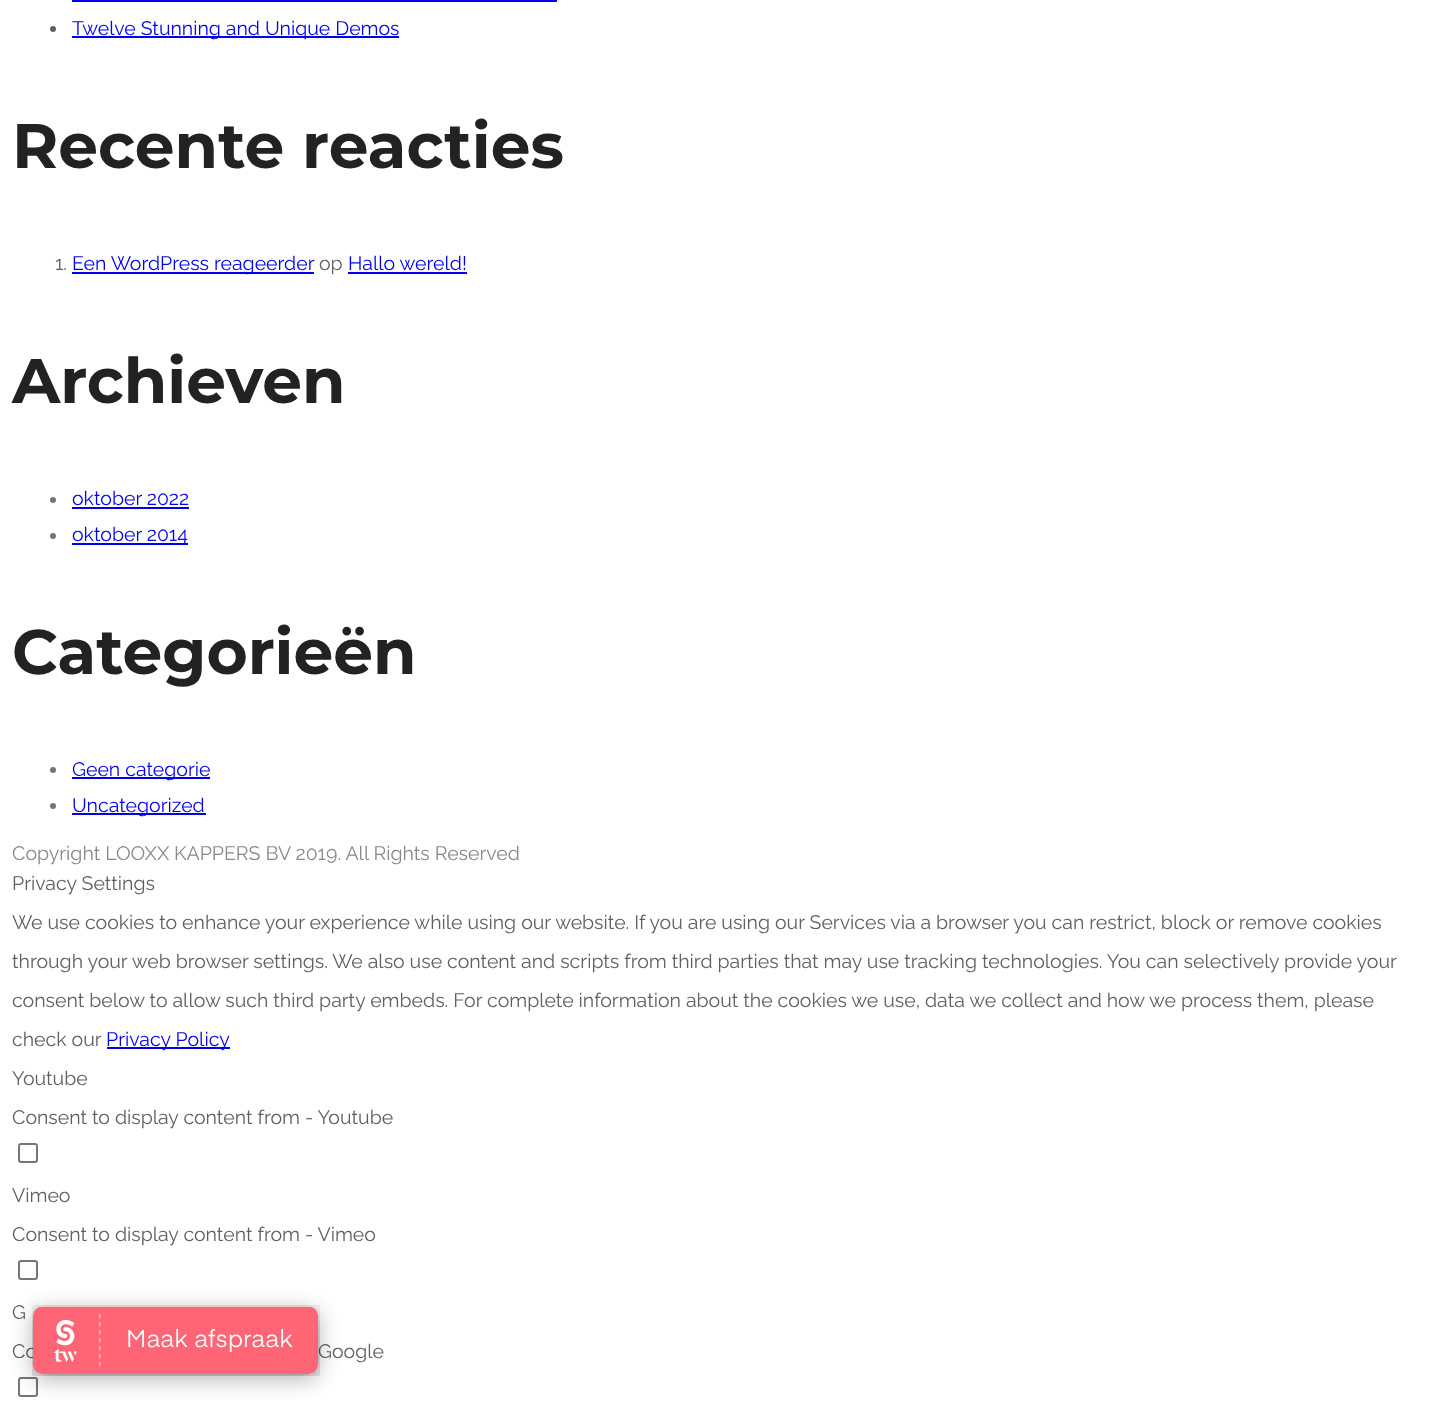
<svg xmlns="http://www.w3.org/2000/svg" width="1439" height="1407">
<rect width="100%" height="100%" fill="#fff"/>
<rect x="72" width="485" height="2" fill="#00e"/>
<circle cx="53" cy="29" r="3" fill="#606060"/>
<rect x="72" y="36" width="327" height="2" fill="#00e"/>
<text x="72" y="35" style="font-family:Raleway;font-size:19.5px;fill:#00e">Twelve Stunning and Unique Demos</text>
<text x="12" y="168" style="font-family:Montserrat;font-size:63px;font-weight:bold;fill:#222">Recente reacties</text>
<text x="55" y="270" style="font-family:Raleway;font-size:19.5px;fill:#606060">1.</text>
<rect x="72" y="272" width="242" height="2" fill="#00e"/>
<text x="72" y="270" style="font-family:Raleway;font-size:19.5px;fill:#00e">Een WordPress reageerder</text>
<text x="319" y="270" style="font-family:Raleway;font-size:19.5px;fill:#606060">op</text>
<text x="348" y="270" style="font-family:Raleway;font-size:19.5px;fill:#00e">Hallo wereld!</text>
<rect x="348" y="272" width="119" height="2" fill="#00e"/>
<text x="12" y="403" style="font-family:Montserrat;font-size:63px;font-weight:bold;fill:#222">Archieven</text>
<circle cx="53" cy="500" r="3" fill="#757575"/>
<text x="72" y="505" style="font-family:Raleway;font-size:19.5px;fill:#00e">oktober 2022</text>
<rect x="72" y="507" width="117" height="2" fill="#00e"/>
<circle cx="53" cy="536" r="3" fill="#757575"/>
<rect x="72" y="543" width="116" height="2" fill="#00e"/>
<text x="72" y="541" style="font-family:Raleway;font-size:19.5px;fill:#00e">oktober 2014</text>
<text x="12" y="674" style="font-family:Montserrat;font-size:63px;font-weight:bold;fill:#222">Categorieën</text>
<circle cx="53" cy="770" r="3" fill="#757575"/>
<rect x="72" y="777" width="138" height="2" fill="#00e"/>
<text x="72" y="776" style="font-family:Raleway;font-size:19.5px;fill:#00e">Geen categorie</text>
<circle cx="53" cy="806" r="3" fill="#757575"/>
<rect x="72" y="813" width="134" height="2" fill="#00e"/>
<text x="72" y="812" style="font-family:Raleway;font-size:19.5px;fill:#00e">Uncategorized</text>
<text x="12" y="860" style="font-family:Raleway;font-size:19.5px;fill:#888">Copyright LOOXX KAPPERS BV 2019. All Rights Reserved</text>
<text x="12" y="890" style="font-family:Raleway;font-size:19.5px;fill:#606060">Privacy Settings</text>
<text x="12" y="929" style="font-family:Raleway;font-size:19.5px;fill:#606060">We use cookies to enhance your experience while using our website. If you are using our Services via a browser you can restrict, block or remove cookies</text>
<text x="12" y="968" style="font-family:Raleway;font-size:19.5px;fill:#606060">through your web browser settings. We also use content and scripts from third parties that may use tracking technologies. You can selectively provide your</text>
<text x="12" y="1007" style="font-family:Raleway;font-size:19.5px;fill:#606060">consent below to allow such third party embeds. For complete information about the cookies we use, data we collect and how we process them, please</text>
<text x="12" y="1046" style="font-family:Raleway;font-size:19.5px;fill:#606060">check our</text>
<rect x="107" y="1047" width="123" height="2" fill="#00e"/>
<text x="106" y="1046" style="font-family:Raleway;font-size:19.5px;fill:#00e">Privacy Policy</text>
<text x="12" y="1085" style="font-family:Raleway;font-size:19.5px;fill:#606060">Youtube</text>
<text x="12" y="1124" style="font-family:Raleway;font-size:19.5px;fill:#606060">Consent to display content from - Youtube</text>
<rect x="19" y="1144" width="18" height="18" rx="2" fill="none" stroke="#767676" stroke-width="2"/>
<text x="12" y="1202" style="font-family:Raleway;font-size:19.5px;fill:#606060">Vimeo</text>
<text x="12" y="1241" style="font-family:Raleway;font-size:19.5px;fill:#606060">Consent to display content from - Vimeo</text>
<rect x="19" y="1261" width="18" height="18" rx="2" fill="none" stroke="#767676" stroke-width="2"/>
<text x="12" y="1319" style="font-family:Raleway;font-size:19.5px;fill:#606060">G</text>
<text x="12" y="1358" style="font-family:Raleway;font-size:19.5px;fill:#606060">Co</text>
<text x="318" y="1358" style="font-family:Raleway;font-size:19.5px;fill:#606060">Google</text>
<rect x="19" y="1378" width="18" height="18" rx="2" fill="none" stroke="#767676" stroke-width="2"/>
<rect x="33" y="1311" width="285" height="68" rx="9" fill="#0000004d" filter="blur(11px)"/>
<image x="32" y="1305" width="288" height="71" href="media/1.png"/>
</svg>
